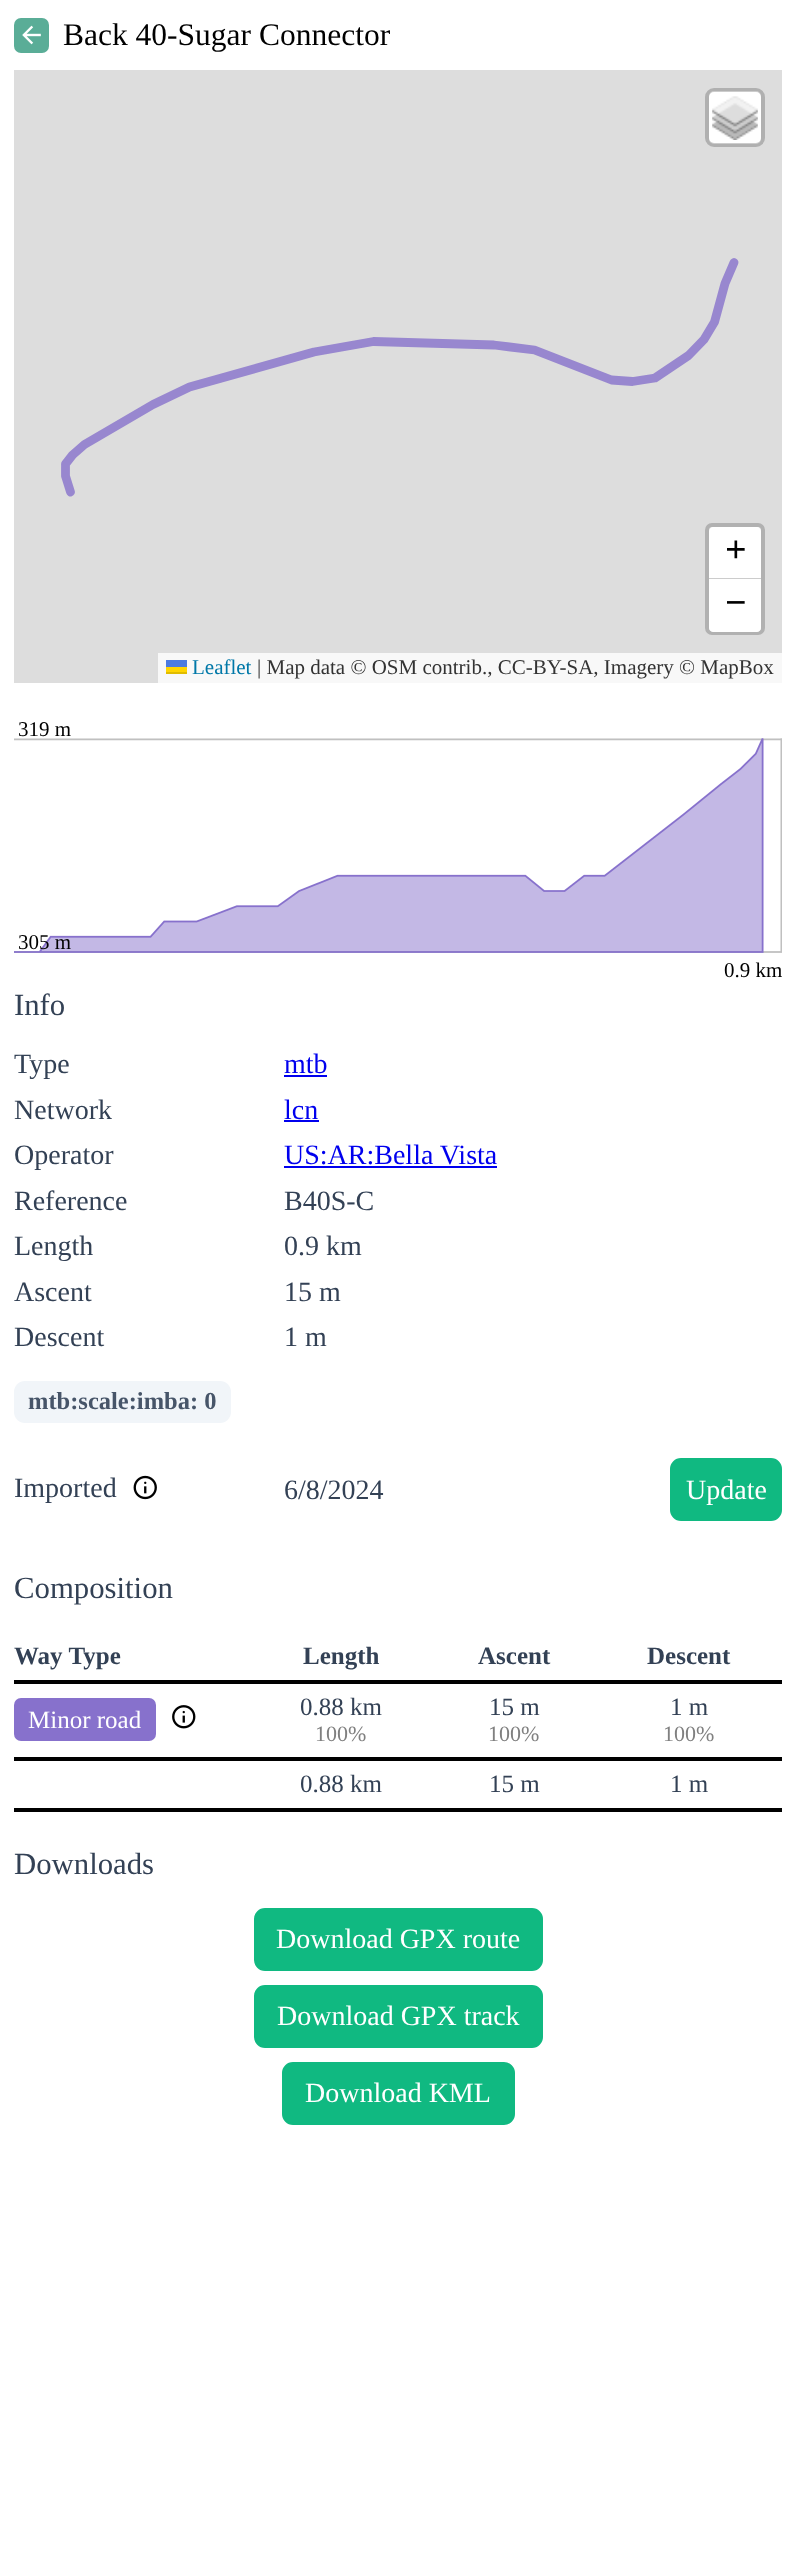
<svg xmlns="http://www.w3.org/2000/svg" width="796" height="2560">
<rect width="100%" height="100%" fill="#fff"/>
<rect x="14" y="18" width="35" height="35" rx="7" fill="#5aad97"/>
<image x="22" y="25" width="19" height="20" href="media/1.png"/>
<text x="63" y="45" style="font-family:Liberation Serif;font-size:31.5px;fill:#000">Back 40-Sugar Connector</text>
<rect x="14" y="70" width="768" height="613" fill="#ddd"/>
<path d="M70.5 492l-5-16v-12l7-9l12-10.5l68.5-40l36.5-17.5l124.5-35l59.5-10.5l120.5 3.5l40.5 5l77 30l21 1.5l22.5-3.5l33.5-22.5l15.5-16l10.5-17.5l10.5-38.5l9-21" fill="none" stroke="#9887cf" stroke-width="8.8" stroke-linecap="round" stroke-linejoin="round"/>
<rect x="709" y="91" width="52" height="53" rx="5" fill="#fff"/>
<rect x="707" y="90" width="56" height="55" rx="7" fill="none" stroke="#00000033" stroke-width="4"/>
<image x="712" y="96" width="46" height="44" href="media/2.png"/>
<rect x="707" y="525" width="56" height="108" rx="5" fill="none" stroke="#b1b1b1" stroke-width="4"/>
<path d="M713 527h44c2 0 4 2 4 4v48h-52v-48c0-2 2-4 4-4z" fill="#fff"/>
<rect x="709" y="578" width="52" height="1" fill="#ccc"/>
<text x="725" y="562" style="font-family:Liberation Serif;font-size:38px;font-weight:bold;fill:#000">+</text>
<path d="M709 579h52v49c0 2-2 4-4 4h-44c-2 0-4-2-4-4z" fill="#fff"/>
<text x="725" y="615" style="font-family:Liberation Serif;font-size:38px;font-weight:bold;fill:#000">−</text>
<rect x="158" y="653" width="624" height="30" fill="#f8f8f8"/>
<text x="192" y="674" style="font-family:Liberation Serif;font-size:21px;fill:#0078a8">Leaflet</text>
<rect x="166" y="660" width="21" height="7" fill="#4c7be1"/>
<rect x="166" y="667" width="21" height="5" fill="#ffd500"/>
<rect x="166" y="672" width="21" height="2" fill="#e0bc00"/>
<text x="257" y="674" style="font-family:Liberation Serif;font-size:21px;fill:#333">| Map data © OSM contrib., CC-BY-SA, Imagery © MapBox</text>
<text x="18" y="736" style="font-family:Liberation Serif;font-size:21px;fill:#000">319 m</text>
<image x="14" y="738" width="768" height="215" href="media/3.png"/>
<text x="18" y="949" style="font-family:Liberation Serif;font-size:21px;fill:#000">305 m</text>
<text x="724" y="977" style="font-family:Liberation Serif;font-size:21px;fill:#000">0.9 km</text>
<text x="14" y="1015" style="font-family:Liberation Serif;font-size:30.75px;fill:#334155">Info</text>
<text x="14" y="1073" style="font-family:Liberation Serif;font-size:28px;fill:#334155">Type</text>
<text x="284" y="1073" style="font-family:Liberation Serif;font-size:28px;fill:#00e">mtb</text>
<rect x="284" y="1075" width="43" height="2" fill="#00e"/>
<text x="14" y="1119" style="font-family:Liberation Serif;font-size:28px;fill:#334155">Network</text>
<text x="284" y="1119" style="font-family:Liberation Serif;font-size:28px;fill:#00e">lcn</text>
<rect x="284" y="1120" width="35" height="2" fill="#00e"/>
<text x="14" y="1164" style="font-family:Liberation Serif;font-size:28px;fill:#334155">Operator</text>
<text x="284" y="1164" style="font-family:Liberation Serif;font-size:28px;fill:#00e">US:AR:Bella Vista</text>
<rect x="284" y="1166" width="213" height="2" fill="#00e"/>
<text x="14" y="1210" style="font-family:Liberation Serif;font-size:28px;fill:#334155">Reference</text>
<text x="284" y="1210" style="font-family:Liberation Serif;font-size:28px;fill:#334155">B40S-C</text>
<text x="14" y="1255" style="font-family:Liberation Serif;font-size:28px;fill:#334155">Length</text>
<text x="284" y="1255" style="font-family:Liberation Serif;font-size:28px;fill:#334155">0.9 km</text>
<text x="14" y="1301" style="font-family:Liberation Serif;font-size:28px;fill:#334155">Ascent</text>
<text x="284" y="1301" style="font-family:Liberation Serif;font-size:28px;fill:#334155">15 m</text>
<text x="14" y="1346" style="font-family:Liberation Serif;font-size:28px;fill:#334155">Descent</text>
<text x="284" y="1346" style="font-family:Liberation Serif;font-size:28px;fill:#334155">1 m</text>
<rect x="14" y="1381" width="217" height="42" rx="11" fill="#f1f5f9"/>
<text x="28" y="1409" style="font-family:Liberation Serif;font-size:24.5px;font-weight:bold;fill:#475569">mtb:scale:imba: 0</text>
<text x="14" y="1497" style="font-family:Liberation Serif;font-size:28px;fill:#334155">Imported</text>
<image x="133" y="1475" width="24" height="25" href="media/4.png"/>
<text x="284" y="1499" style="font-family:Liberation Serif;font-size:28px;fill:#334155">6/8/2024</text>
<rect x="671" y="1459" width="110" height="61" rx="10" fill="#10b981" stroke="#10b981" stroke-width="2"/>
<text x="686" y="1499" style="font-family:Liberation Serif;font-size:28px;fill:#fff">Update</text>
<text x="14" y="1598" style="font-family:Liberation Serif;font-size:30.75px;fill:#334155">Composition</text>
<text x="14" y="1664" style="font-family:Liberation Serif;font-size:25px;font-weight:bold;fill:#334155">Way Type</text>
<text x="303" y="1664" style="font-family:Liberation Serif;font-size:25px;font-weight:bold;fill:#334155">Length</text>
<text x="478" y="1664" style="font-family:Liberation Serif;font-size:25px;font-weight:bold;fill:#334155">Ascent</text>
<rect x="14" y="1680" width="768" height="4" fill="#000"/>
<text x="647" y="1664" style="font-family:Liberation Serif;font-size:25px;font-weight:bold;fill:#334155">Descent</text>
<rect x="14" y="1698" width="142" height="43" rx="7" fill="#8771cc"/>
<text x="28" y="1728" style="font-family:Liberation Serif;font-size:25px;fill:#fff">Minor road</text>
<image x="172" y="1705" width="24" height="24" href="media/5.png"/>
<text x="300" y="1715" style="font-family:Liberation Serif;font-size:25px;fill:#334155">0.88 km</text>
<text x="315" y="1741" style="font-family:Liberation Serif;font-size:22px;fill:#808080">100%</text>
<text x="489" y="1715" style="font-family:Liberation Serif;font-size:25px;fill:#334155">15 m</text>
<text x="488" y="1741" style="font-family:Liberation Serif;font-size:22px;fill:#808080">100%</text>
<text x="670" y="1715" style="font-family:Liberation Serif;font-size:25px;fill:#334155">1 m</text>
<text x="663" y="1741" style="font-family:Liberation Serif;font-size:22px;fill:#808080">100%</text>
<text x="300" y="1792" style="font-family:Liberation Serif;font-size:25px;fill:#334155">0.88 km</text>
<text x="489" y="1792" style="font-family:Liberation Serif;font-size:25px;fill:#334155">15 m</text>
<rect x="14" y="1757" width="768" height="4" fill="#000"/>
<rect x="14" y="1808" width="768" height="4" fill="#000"/>
<text x="670" y="1792" style="font-family:Liberation Serif;font-size:25px;fill:#334155">1 m</text>
<text x="14" y="1874" style="font-family:Liberation Serif;font-size:30.75px;fill:#334155">Downloads</text>
<rect x="255" y="1909" width="287" height="61" rx="10" fill="#10b981" stroke="#10b981" stroke-width="2"/>
<text x="276" y="1948" style="font-family:Liberation Serif;font-size:28px;fill:#fff">Download GPX route</text>
<rect x="255" y="1986" width="287" height="61" rx="10" fill="#10b981" stroke="#10b981" stroke-width="2"/>
<text x="277" y="2025" style="font-family:Liberation Serif;font-size:28px;fill:#fff">Download GPX track</text>
<rect x="283" y="2063" width="231" height="61" rx="10" fill="#10b981" stroke="#10b981" stroke-width="2"/>
<text x="305" y="2102" style="font-family:Liberation Serif;font-size:28px;fill:#fff">Download KML</text>
</svg>
